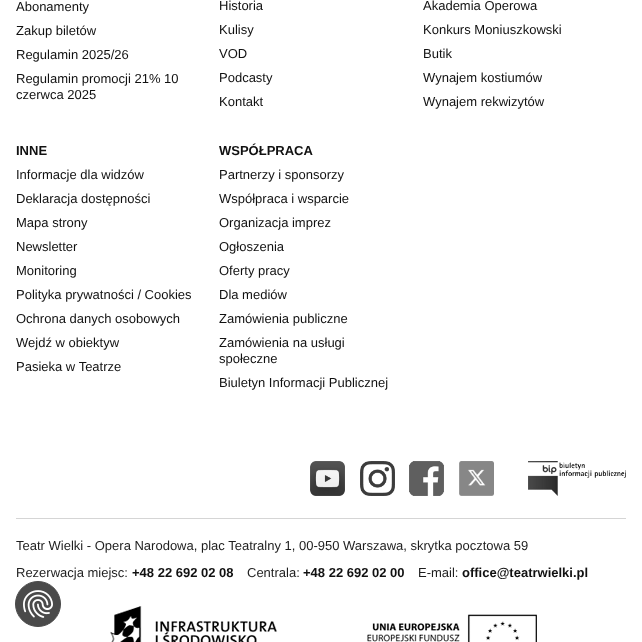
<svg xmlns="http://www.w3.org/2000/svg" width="642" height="642">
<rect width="100%" height="100%" fill="#fff"/>
<text x="16" y="11" style="font-family:Liberation Sans;font-size:13px;fill:#111">Abonamenty</text>
<text x="16" y="35" style="font-family:Liberation Sans;font-size:13px;fill:#111">Zakup biletów</text>
<text x="16" y="59" style="font-family:Liberation Sans;font-size:13px;fill:#111">Regulamin 2025/26</text>
<text x="16" y="83" style="font-family:Liberation Sans;font-size:13px;fill:#111">Regulamin promocji 21% 10</text>
<text x="16" y="99" style="font-family:Liberation Sans;font-size:13px;fill:#111">czerwca 2025</text>
<text x="219" y="10" style="font-family:Liberation Sans;font-size:13px;fill:#111">Historia</text>
<text x="219" y="34" style="font-family:Liberation Sans;font-size:13px;fill:#111">Kulisy</text>
<text x="219" y="58" style="font-family:Liberation Sans;font-size:13px;fill:#111">VOD</text>
<text x="219" y="82" style="font-family:Liberation Sans;font-size:13px;fill:#111">Podcasty</text>
<text x="219" y="106" style="font-family:Liberation Sans;font-size:13px;fill:#111">Kontakt</text>
<text x="423" y="10" style="font-family:Liberation Sans;font-size:13px;fill:#111">Akademia Operowa</text>
<text x="423" y="34" style="font-family:Liberation Sans;font-size:13px;fill:#111">Konkurs Moniuszkowski</text>
<text x="423" y="58" style="font-family:Liberation Sans;font-size:13px;fill:#111">Butik</text>
<text x="423" y="82" style="font-family:Liberation Sans;font-size:13px;fill:#111">Wynajem kostiumów</text>
<text x="423" y="106" style="font-family:Liberation Sans;font-size:13px;fill:#111">Wynajem rekwizytów</text>
<text x="16" y="155" style="font-family:Liberation Sans;font-size:13px;font-weight:bold;fill:#111">INNE</text>
<text x="16" y="179" style="font-family:Liberation Sans;font-size:13px;fill:#111">Informacje dla widzów</text>
<text x="16" y="203" style="font-family:Liberation Sans;font-size:13px;fill:#111">Deklaracja dostępności</text>
<text x="16" y="227" style="font-family:Liberation Sans;font-size:13px;fill:#111">Mapa strony</text>
<text x="16" y="251" style="font-family:Liberation Sans;font-size:13px;fill:#111">Newsletter</text>
<text x="16" y="275" style="font-family:Liberation Sans;font-size:13px;fill:#111">Monitoring</text>
<text x="16" y="299" style="font-family:Liberation Sans;font-size:13px;fill:#111">Polityka prywatności / Cookies</text>
<text x="16" y="323" style="font-family:Liberation Sans;font-size:13px;fill:#111">Ochrona danych osobowych</text>
<text x="16" y="347" style="font-family:Liberation Sans;font-size:13px;fill:#111">Wejdź w obiektyw</text>
<text x="16" y="371" style="font-family:Liberation Sans;font-size:13px;fill:#111">Pasieka w Teatrze</text>
<text x="219" y="155" style="font-family:Liberation Sans;font-size:13px;font-weight:bold;fill:#111">WSPÓŁPRACA</text>
<text x="219" y="179" style="font-family:Liberation Sans;font-size:13px;fill:#111">Partnerzy i sponsorzy</text>
<text x="219" y="203" style="font-family:Liberation Sans;font-size:13px;fill:#111">Współpraca i wsparcie</text>
<text x="219" y="227" style="font-family:Liberation Sans;font-size:13px;fill:#111">Organizacja imprez</text>
<text x="219" y="251" style="font-family:Liberation Sans;font-size:13px;fill:#111">Ogłoszenia</text>
<text x="219" y="275" style="font-family:Liberation Sans;font-size:13px;fill:#111">Oferty pracy</text>
<text x="219" y="299" style="font-family:Liberation Sans;font-size:13px;fill:#111">Dla mediów</text>
<text x="219" y="323" style="font-family:Liberation Sans;font-size:13px;fill:#111">Zamówienia publiczne</text>
<text x="219" y="347" style="font-family:Liberation Sans;font-size:13px;fill:#111">Zamówienia na usługi</text>
<text x="219" y="363" style="font-family:Liberation Sans;font-size:13px;fill:#111">społeczne</text>
<text x="219" y="387" style="font-family:Liberation Sans;font-size:13px;fill:#111">Biuletyn Informacji Publicznej</text>
<image x="310" y="461" width="35" height="35" href="media/1.png"/>
<image x="360" y="461" width="35" height="35" href="media/2.png"/>
<image x="409" y="461" width="35" height="35" href="media/3.png"/>
<image x="459" y="461" width="35" height="35" href="media/4.png"/>
<image x="528" y="461" width="98" height="35" href="media/5.png"/>
<rect x="16" y="518" width="610" height="1" fill="#d5d5d5"/>
<text x="16" y="550" style="font-family:Liberation Sans;font-size:13px;fill:#1e1e1e">Teatr Wielki - Opera Narodowa, plac Teatralny 1, 00-950 Warszawa, skrytka pocztowa 59</text>
<text x="16" y="577" style="font-family:Liberation Sans;font-size:13px;fill:#1e1e1e">Rezerwacja miejsc:</text>
<text x="132" y="577" style="font-family:Liberation Sans;font-size:13px;font-weight:bold;fill:#111">+48 22 692 02 08</text>
<text x="247" y="577" style="font-family:Liberation Sans;font-size:13px;fill:#1e1e1e">Centrala:</text>
<text x="303" y="577" style="font-family:Liberation Sans;font-size:13px;font-weight:bold;fill:#111">+48 22 692 02 00</text>
<text x="418" y="577" style="font-family:Liberation Sans;font-size:13px;fill:#1e1e1e">E-mail:</text>
<text x="462" y="577" style="font-family:Liberation Sans;font-size:13px;font-weight:bold;fill:#111">office@teatrwielki.pl</text>
<image x="110" y="606" width="427" height="36" href="media/6.png"/>
<circle cx="38" cy="604" r="22.5" fill="#4a4a4a" stroke="#4a4a4a"/>
<image x="23" y="590" width="30" height="28" href="media/7.png"/>
</svg>
